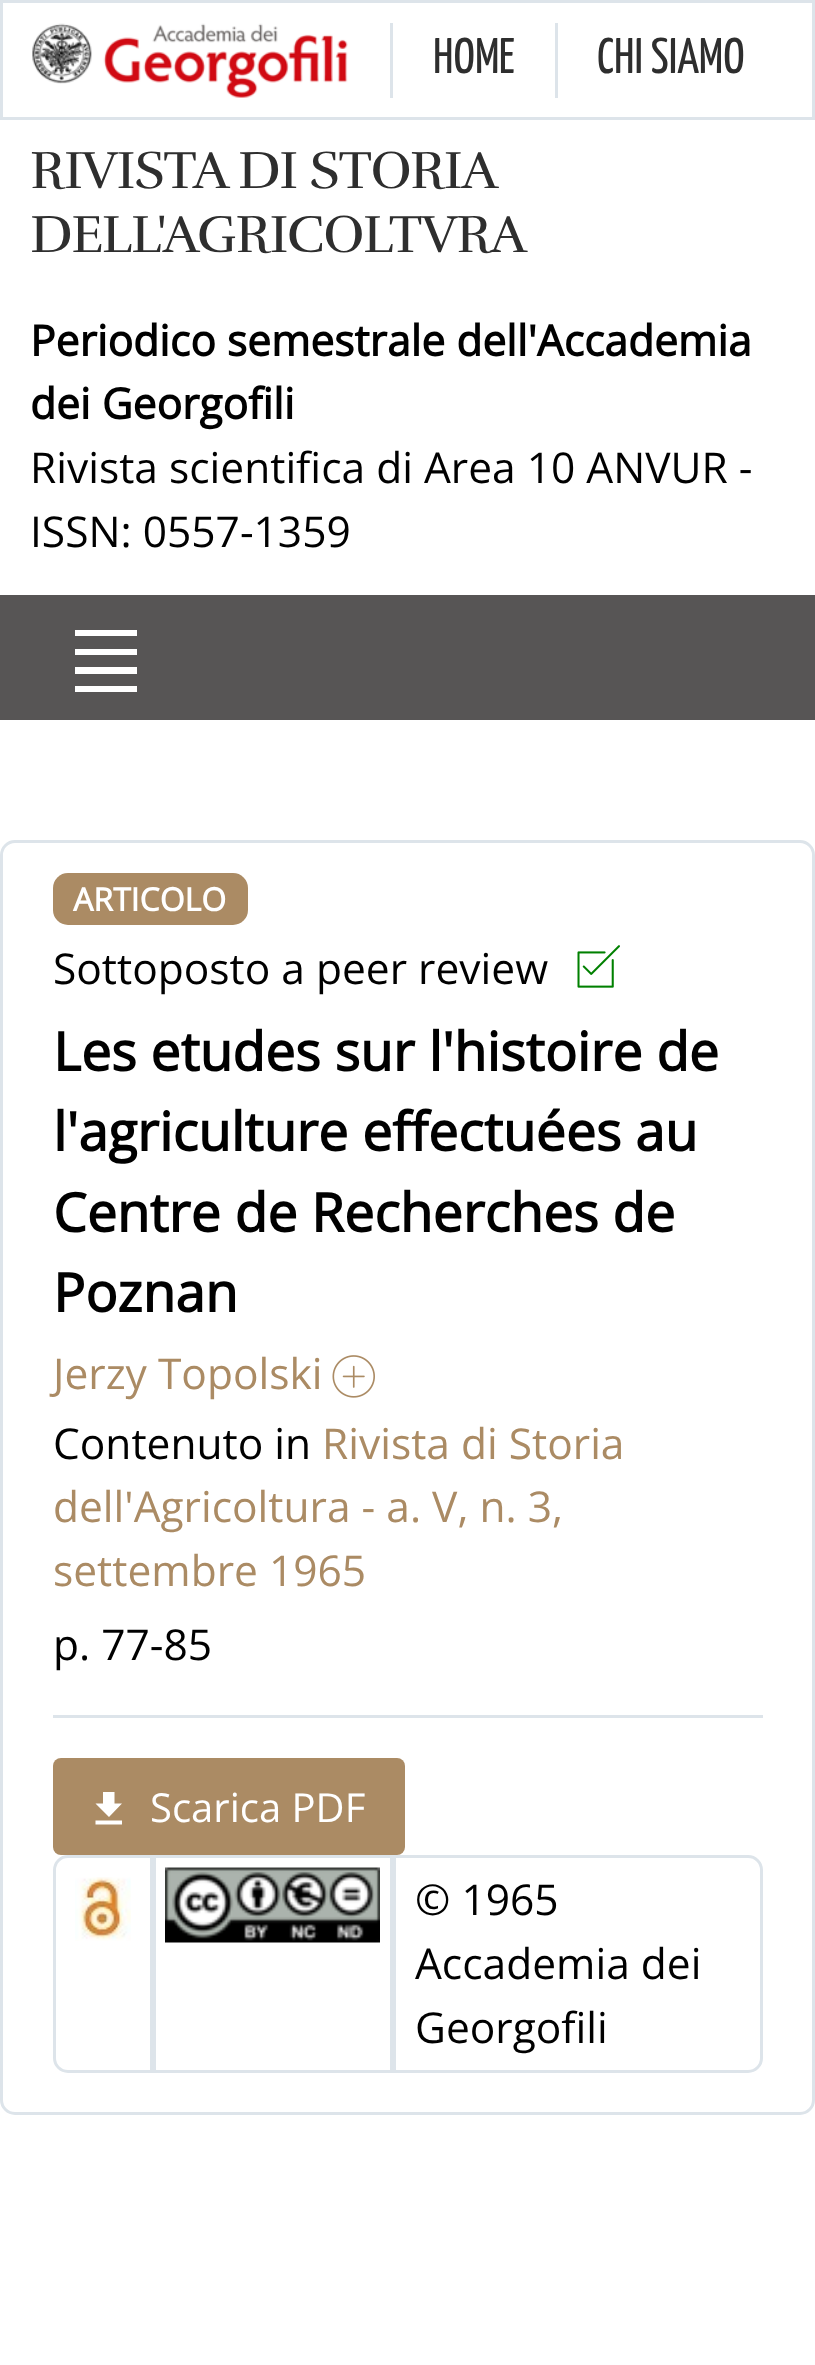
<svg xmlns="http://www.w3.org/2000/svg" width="815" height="2365">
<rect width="100%" height="100%" fill="#fff"/>
<rect x="1.5" y="1.5" width="812" height="117" fill="none" stroke="#dde4ea" stroke-width="3"/>
<rect x="390" y="23" width="3" height="75" fill="#dde4ea"/>
<image x="32" y="23" width="316" height="75" href="media/1.png"/>
<rect x="555" y="23" width="3" height="75" fill="#dde4ea"/>
<text x="433" y="73" style="font-family:Yanone Kaffeesatz;font-size:50px;font-weight:200;fill:#2e2e2e">HOME</text>
<text x="597" y="73" style="font-family:Yanone Kaffeesatz;font-size:50px;font-weight:200;fill:#2e2e2e">CHI SIAMO</text>
<text x="30" y="188" style="font-family:Rufina;font-size:53.5px;letter-spacing:-1.25px;fill:#2e2e2e">RIVISTA DI STORIA</text>
<text x="30" y="252" style="font-family:Rufina;font-size:53.5px;letter-spacing:-1.25px;fill:#2e2e2e">DELL'AGRICOLTVRA</text>
<text x="30" y="356" style="font-family:Open Sans;font-size:42.5px;font-weight:bold;fill:#000">Periodico semestrale dell'Accademia</text>
<text x="30" y="419" style="font-family:Open Sans;font-size:42.5px;font-weight:bold;fill:#000">dei Georgofili</text>
<text x="30" y="483" style="font-family:Open Sans;font-size:42.5px;fill:#000">Rivista scientifica di Area 10 ANVUR -</text>
<text x="30" y="547" style="font-family:Open Sans;font-size:42.5px;fill:#000">ISSN: 0557-1359</text>
<rect y="595" width="815" height="125" fill="#575555"/>
<rect x="75" y="630" width="62" height="6" fill="#fff"/>
<rect x="75" y="649" width="62" height="6" fill="#fff"/>
<rect x="75" y="667" width="62" height="7" fill="#fff"/>
<rect x="75" y="686" width="62" height="6" fill="#fff"/>
<rect x="1.5" y="841.5" width="812" height="1272" rx="13.5" fill="none" stroke="#dde4ea" stroke-width="3"/>
<rect x="53" y="873" width="195" height="52" rx="15" fill="#ab8b64"/>
<text x="73" y="911" style="font-family:Open Sans;font-size:32px;font-weight:bold;fill:#fff">ARTICOLO</text>
<text x="53" y="984" style="font-family:Open Sans;font-size:42.5px;fill:#000">Sottoposto a peer review</text>
<image x="577" y="945" width="43" height="43" href="media/2.png"/>
<text x="53" y="1071" style="font-family:Open Sans;font-size:53.5px;font-weight:bold;fill:#000">Les etudes sur l'histoire de</text>
<text x="53" y="1151" style="font-family:Open Sans;font-size:53.5px;font-weight:bold;fill:#000">l'agriculture effectuées au</text>
<text x="53" y="1232" style="font-family:Open Sans;font-size:53.5px;font-weight:bold;fill:#000">Centre de Recherches de</text>
<text x="53" y="1312" style="font-family:Open Sans;font-size:53.5px;font-weight:bold;fill:#000">Poznan</text>
<text x="53" y="1389" style="font-family:Open Sans;font-size:42.5px;fill:#ab8b64">Jerzy Topolski</text>
<image x="332" y="1355" width="43" height="43" href="media/3.png"/>
<text x="53" y="1459" style="font-family:Open Sans;font-size:42.5px;fill:#000">Contenuto in</text>
<text x="322" y="1459" style="font-family:Open Sans;font-size:42.5px;fill:#ab8b64">Rivista di Storia</text>
<text x="53" y="1522" style="font-family:Open Sans;font-size:42.5px;fill:#ab8b64">dell'Agricoltura - a. V, n. 3,</text>
<text x="53" y="1586" style="font-family:Open Sans;font-size:42.5px;fill:#ab8b64">settembre 1965</text>
<text x="53" y="1660" style="font-family:Open Sans;font-size:42.5px;fill:#000">p. 77-85</text>
<rect x="53" y="1715" width="710" height="3" fill="#dde4ea"/>
<rect x="53" y="1758" width="352" height="97" rx="8" fill="#ab8b64"/>
<path d="M122 1803.5l-13 13.5l-13.5-13.5h7.5v-11.5h11.5v11.5zm-26.5 17h26.5v4h-26.5z" fill="#fff"/>
<text x="150" y="1822" style="font-family:Open Sans;font-size:40px;fill:#fff">Scarica PDF</text>
<path d="M68 1856.5h83.5v215h-83.5c-7.5 0-13.5-6-13.5-13.5v-188c0-7.5 6-13.5 13.5-13.5z" fill="none" stroke="#dde4ea" stroke-width="3"/>
<image x="75" y="1877" width="56" height="64" href="media/4.png"/>
<rect x="154.5" y="1856.5" width="237" height="215" fill="none" stroke="#dde4ea" stroke-width="3"/>
<image x="165" y="1867" width="215" height="76" href="media/5.png"/>
<path d="M394.5 1856.5h353.5c7.5 0 13.5 6 13.5 13.5v188c0 7.5-6 13.5-13.5 13.5h-353.5z" fill="none" stroke="#dde4ea" stroke-width="3"/>
<text x="415" y="1915" style="font-family:Open Sans;font-size:42.5px;fill:#000">© 1965</text>
<text x="415" y="1979" style="font-family:Open Sans;font-size:42.5px;fill:#000">Accademia dei</text>
<text x="415" y="2043" style="font-family:Open Sans;font-size:42.5px;fill:#000">Georgofili</text>
</svg>
